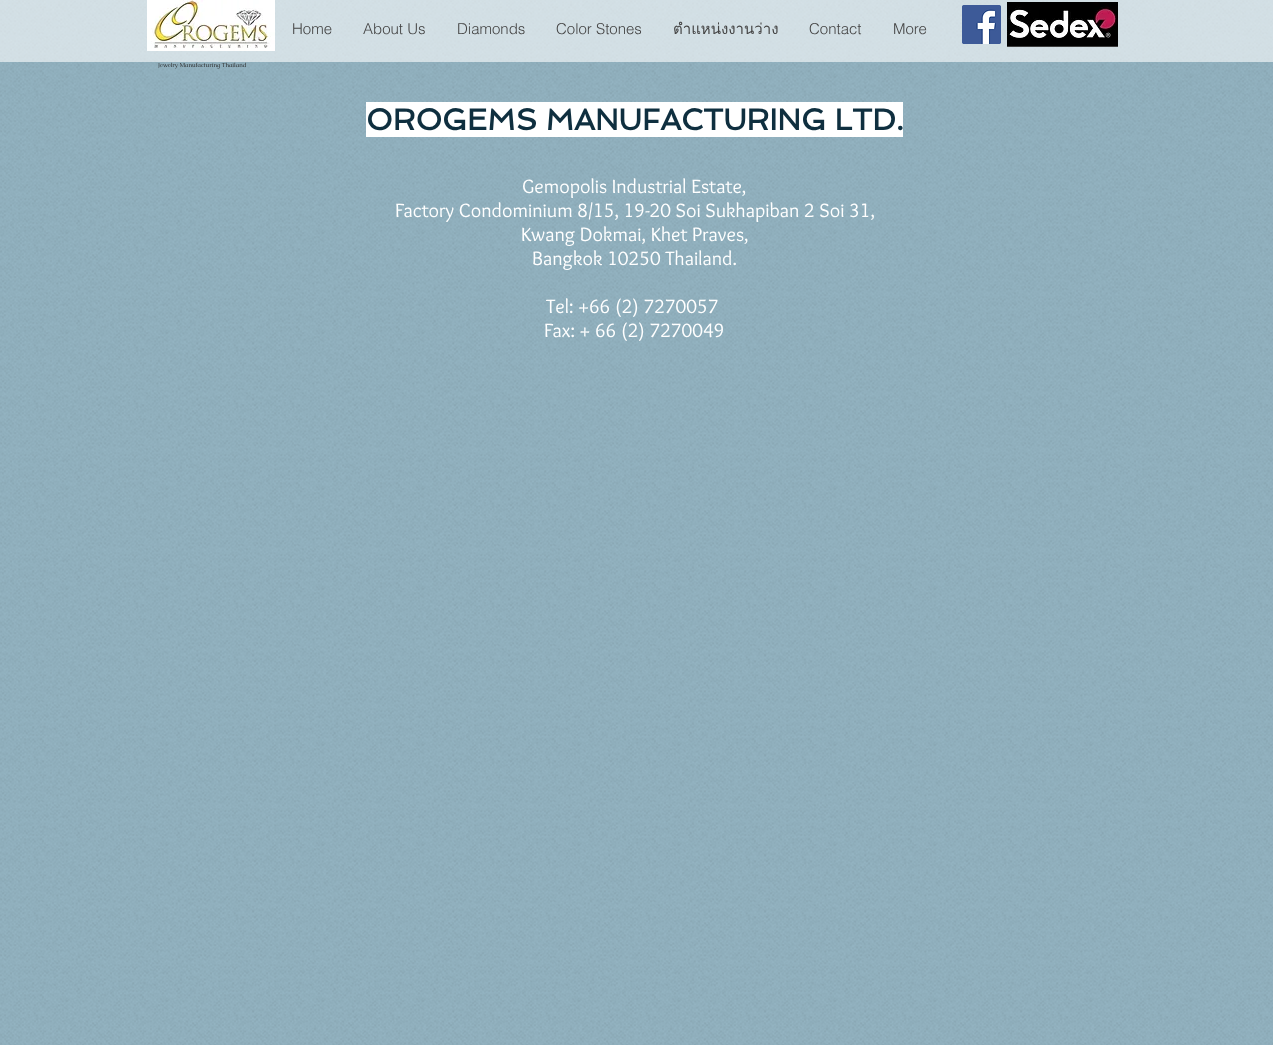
<svg xmlns="http://www.w3.org/2000/svg" width="1273" height="1045">
<rect width="100%" height="100%" fill="#93b3c1"/>
<image x="0" y="0" width="1273" height="1045" href="media/1.png"/>
<rect width="1273" height="62" fill="#ffffff99"/>
<image x="147" y="0" width="128" height="51" href="media/2.png"/>
<text x="292" y="34" style="font-family:helvetica;font-size:15px;font-weight:300;fill:#444">Home</text>
<text x="363" y="34" style="font-family:helvetica;font-size:15px;font-weight:300;fill:#444">About Us</text>
<text x="457" y="34" style="font-family:helvetica;font-size:15px;font-weight:300;fill:#444">Diamonds</text>
<text x="556" y="34" style="font-family:helvetica;font-size:15px;font-weight:300;fill:#444">Color Stones</text>
<text x="673" y="34" style="font-family:Loma;font-size:15px;fill:#444">ตำแหน่งงานว่าง</text>
<text x="809" y="34" style="font-family:helvetica;font-size:15px;font-weight:300;fill:#444">Contact</text>
<text x="893" y="34" style="font-family:helvetica;font-size:15px;font-weight:300;fill:#444">More</text>
<image x="962" y="5" width="39" height="39" href="media/3.png"/>
<image x="1007" y="2" width="111" height="45" href="media/4.png"/>
<text x="158" y="67" style="font-family:Caudex;font-size:6px;fill:#292929">Jewelry Manufacturing Thailand</text>
<rect x="366" y="102" width="537" height="35" fill="#fff"/>
<text x="366" y="130" style="font-family:Spinnaker;font-size:30px;font-weight:bold;fill:#0f2f3f">OROGEMS MANUFACTURING LTD.</text>
<text x="522" y="193" style="font-family:Overlock;font-size:20px;fill:#fff">Gemopolis Industrial Estate,</text>
<text x="395" y="217" style="font-family:Overlock;font-size:20px;fill:#fff">Factory Condominium 8/15, 19-20 Soi Sukhapiban 2 Soi 31,</text>
<text x="521" y="241" style="font-family:Overlock;font-size:20px;fill:#fff">Kwang Dokmai, Khet Praves,</text>
<text x="532" y="265" style="font-family:Overlock;font-size:20px;fill:#fff">Bangkok 10250 Thailand.</text>
<text x="546" y="313" style="font-family:Overlock;font-size:20px;fill:#fff">Tel: +66 (2) 7270057</text>
<text x="544" y="337" style="font-family:Overlock;font-size:20px;fill:#fff">Fax: + 66 (2) 7270049</text>
</svg>
